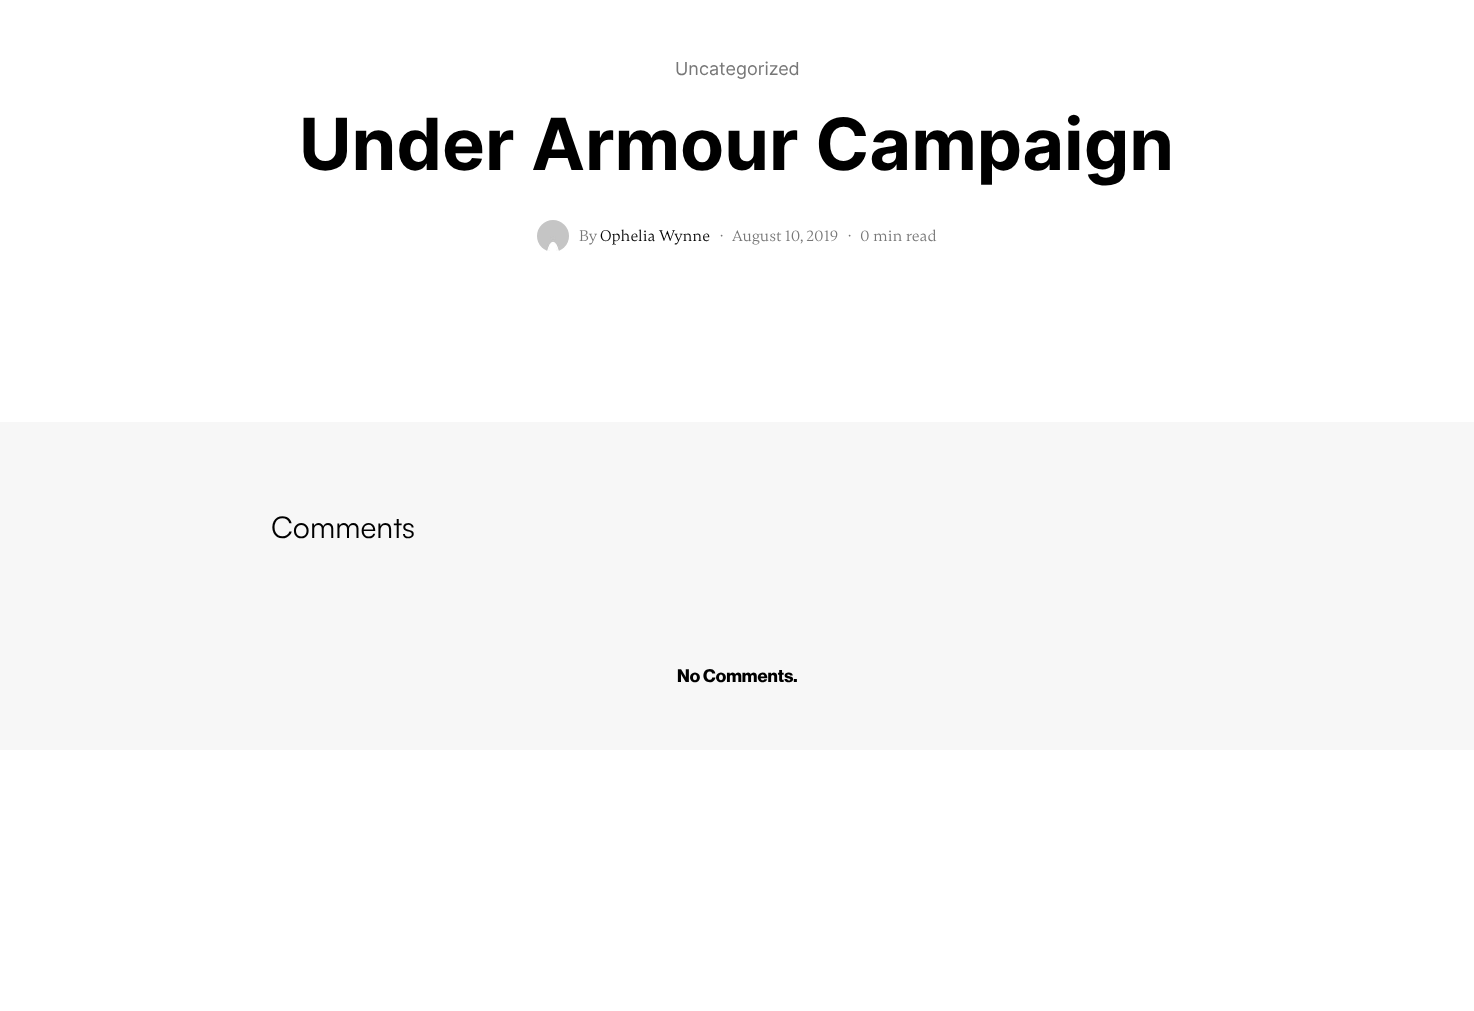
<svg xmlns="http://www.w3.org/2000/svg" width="1474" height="1011">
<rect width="100%" height="100%" fill="#fff"/>
<text x="675" y="75" style="font-family:Inter;font-size:18px;fill:#777">Uncategorized</text>
<text x="299" y="170" style="font-family:Inter;font-size:72px;font-weight:bold;fill:#000">Under Armour Campaign</text>
<image x="537" y="220" width="32" height="31" href="media/1.png"/>
<text x="579" y="241" style="font-family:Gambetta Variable;font-size:16px;fill:#777">By</text>
<text x="600" y="241" style="font-family:Gambetta Variable;font-size:16px;fill:#000">Ophelia Wynne</text>
<text x="720" y="241" style="font-family:Gambetta Variable;font-size:16px;fill:#777">·</text>
<text x="732" y="241" style="font-family:Gambetta Variable;font-size:16px;fill:#777">August 10, 2019</text>
<text x="848" y="241" style="font-family:Gambetta Variable;font-size:16px;fill:#777">·</text>
<text x="860" y="241" style="font-family:Gambetta Variable;font-size:16px;fill:#777">0 min read</text>
<rect y="422" width="1474" height="328" fill="#f7f7f7"/>
<text x="271" y="538" style="font-family:Satoshi;font-size:30px;fill:#000">Comments</text>
<text x="677" y="682" style="font-family:'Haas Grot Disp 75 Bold';font-size:18px;font-weight:bold;fill:#000">No Comments.</text>
</svg>
